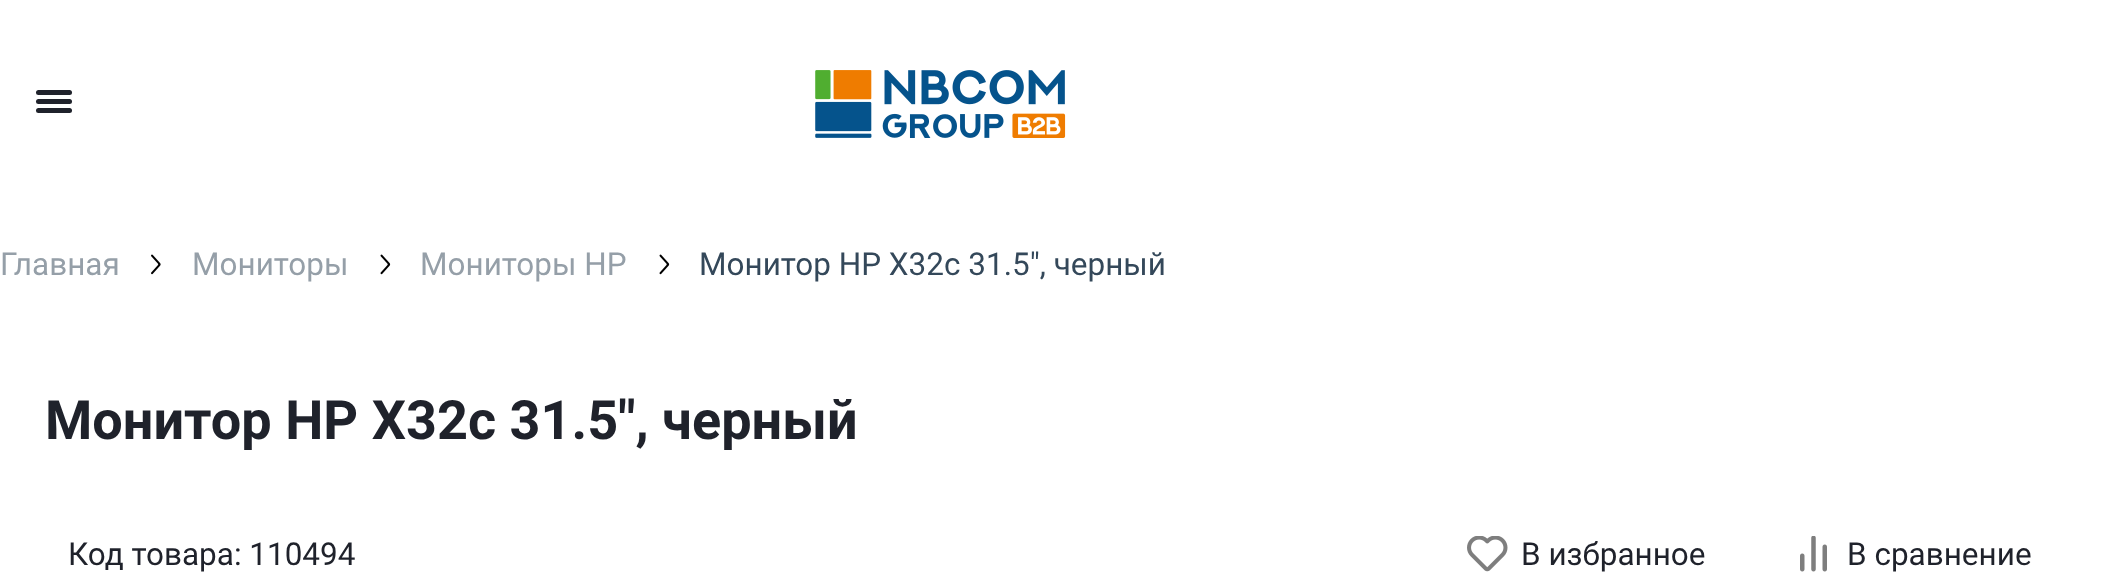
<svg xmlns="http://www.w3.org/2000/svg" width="2107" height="585">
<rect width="100%" height="100%" fill="#fff"/>
<rect x="36" y="99" width="36" height="5" rx="2.5" fill="#1f222b"/>
<rect x="36" y="90" width="36" height="5" rx="2.5" fill="#1f222b"/>
<rect x="36" y="108" width="36" height="5" rx="2.5" fill="#1f222b"/>
<image x="815" y="70" width="251" height="68" href="media/1.png"/>
<text x="0" y="275" style="font-family:Roboto;font-size:31.5px;fill:#959fa8">Главная</text>
<image x="151" y="254" width="10" height="21" href="media/2.png"/>
<text x="192" y="275" style="font-family:Roboto;font-size:31.5px;fill:#959fa8">Мониторы</text>
<image x="380" y="254" width="11" height="21" href="media/3.png"/>
<text x="420" y="275" style="font-family:Roboto;font-size:31.5px;fill:#959fa8">Мониторы HP</text>
<image x="659" y="254" width="11" height="21" href="media/3.png"/>
<text x="699" y="275" style="font-family:Roboto;font-size:31.5px;fill:#34485a">Монитор HP X32c 31.5″, черный</text>
<text x="45" y="439" style="font-family:Roboto;font-size:54px;font-weight:bold;fill:#1f222b">Монитор HP X32c 31.5″, черный</text>
<text x="68" y="565" style="font-family:Roboto;font-size:31.5px;fill:#1f222b">Код товара: 110494</text>
<image x="1467" y="536" width="41" height="36" href="media/4.png"/>
<text x="1521" y="565" style="font-family:Roboto;font-size:31.5px;fill:#1f222b">В избранное</text>
<image x="1800" y="536" width="27" height="36" href="media/5.png"/>
<text x="1847" y="565" style="font-family:Roboto;font-size:31.5px;fill:#1f222b">В сравнение</text>
</svg>
